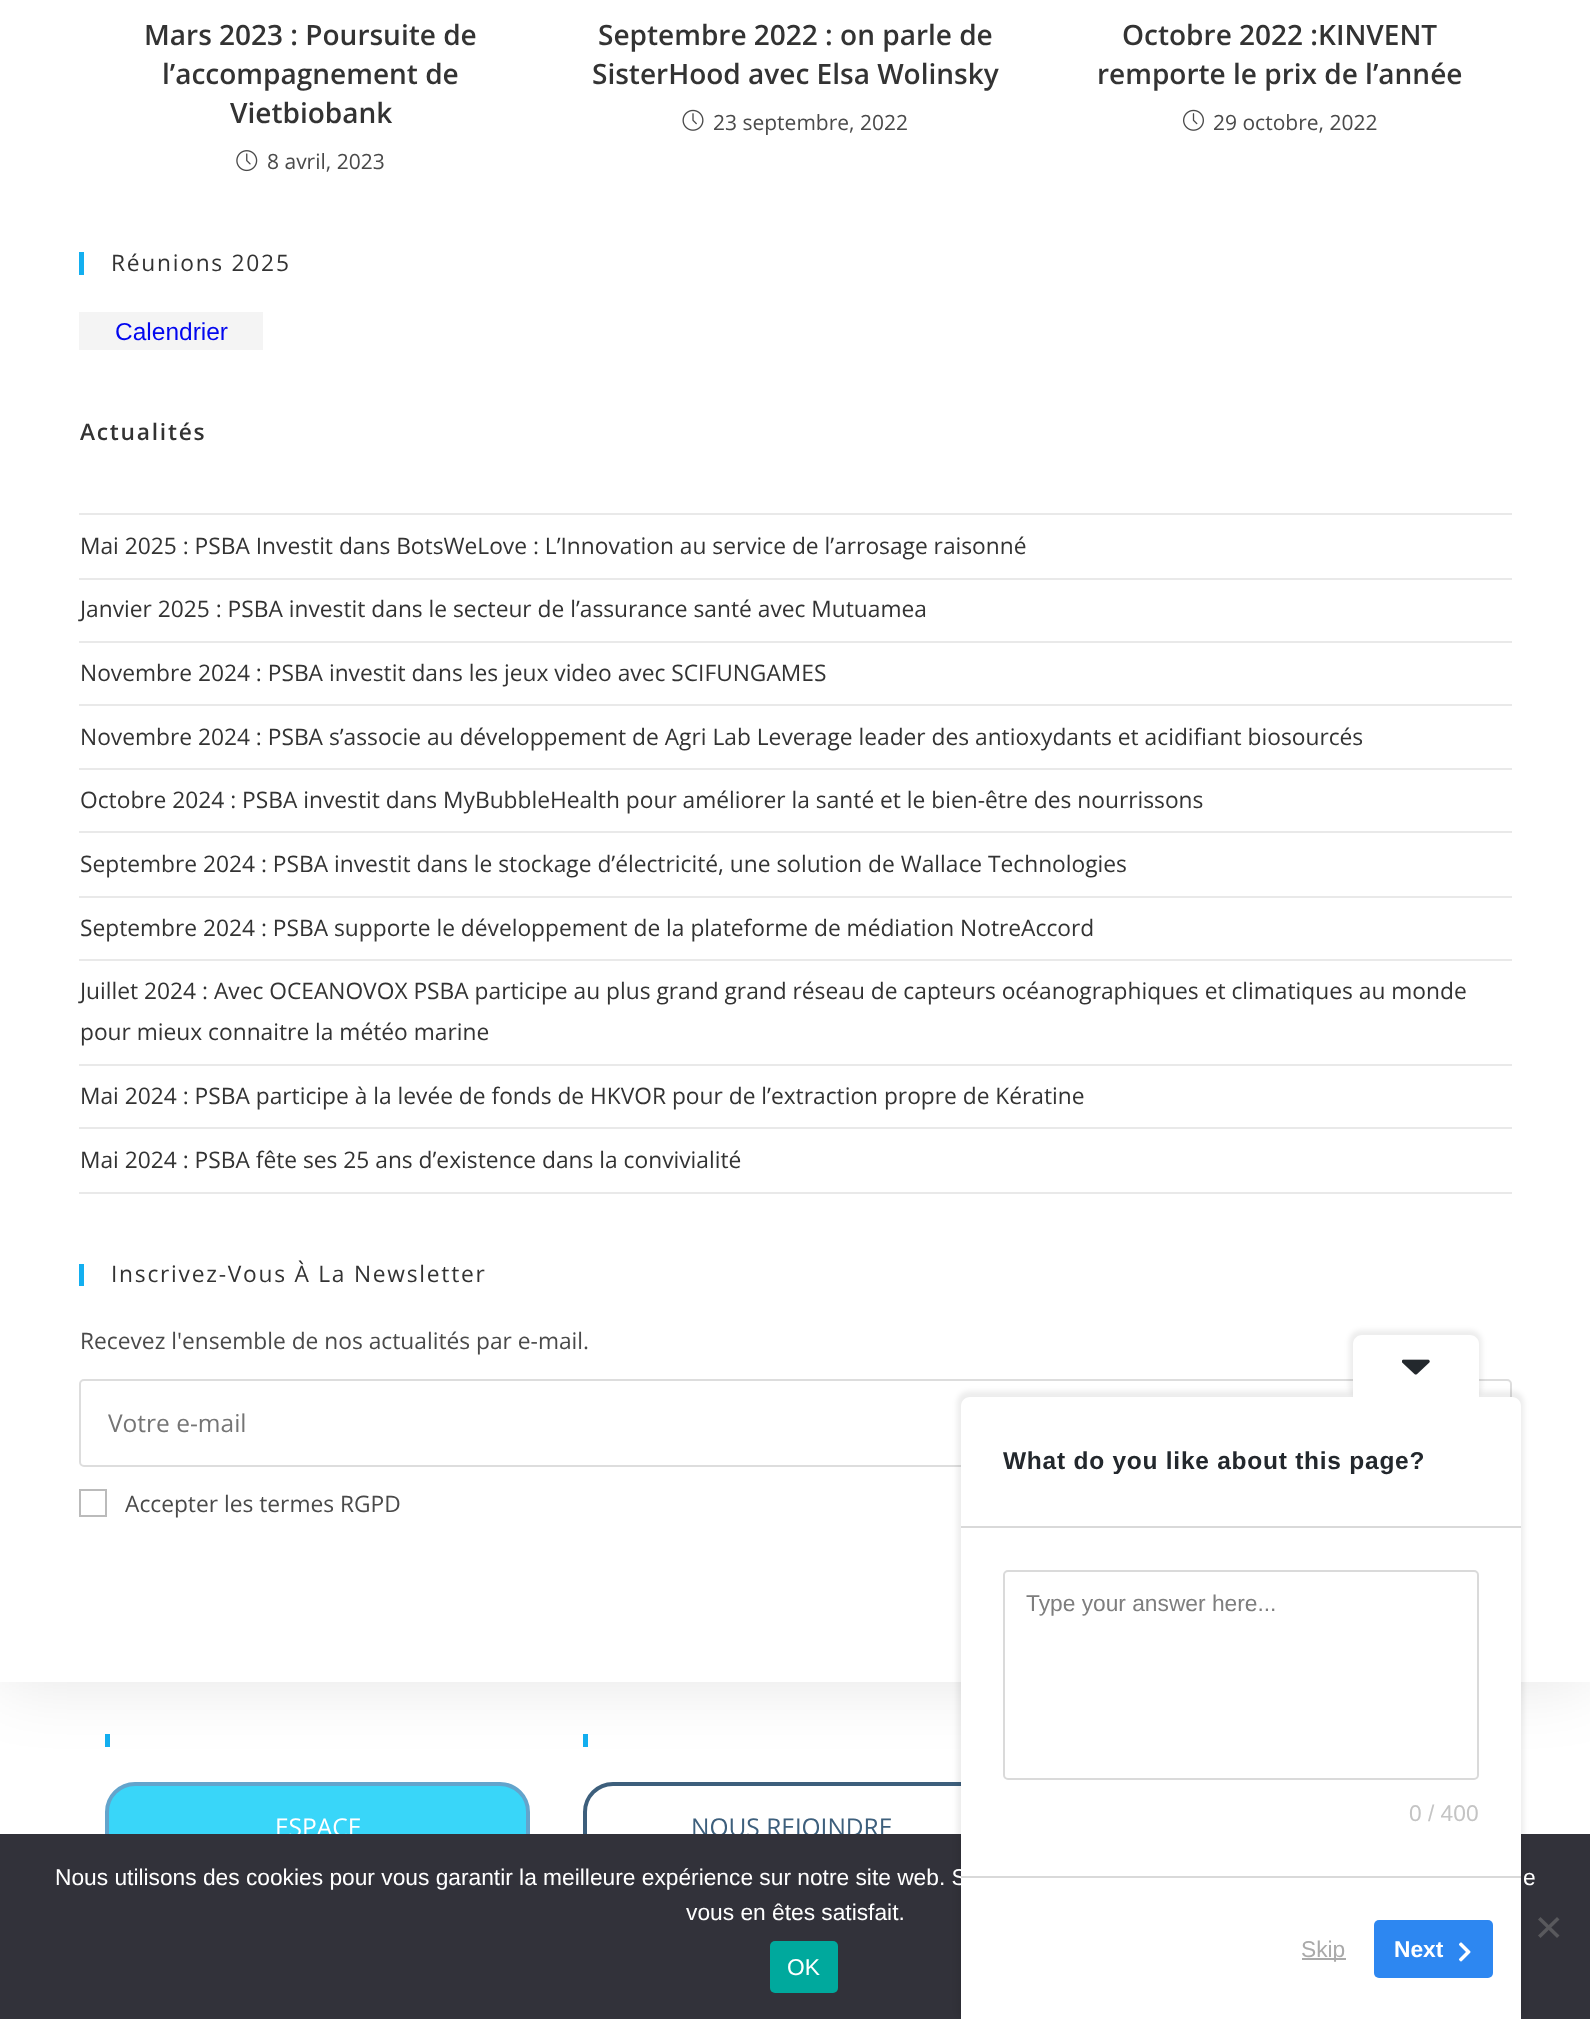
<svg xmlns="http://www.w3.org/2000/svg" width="1590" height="2019">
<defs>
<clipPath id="clip1"><path d="M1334 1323.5h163.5l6.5 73.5h-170z"/></clipPath>
</defs>
<rect width="100%" height="100%" fill="#fff"/>
<rect x="105" y="1734" width="5" height="13" fill="#13aff0"/>
<rect x="107" y="1784" width="421" height="111" rx="28" fill="#39d6f9" stroke="#63a4cc" stroke-width="4"/>
<rect x="583" y="1734" width="5" height="13" fill="#13aff0"/>
<rect x="585" y="1784" width="414" height="90" rx="28" fill="none" stroke="#3d5f7c" stroke-width="4"/>
<rect y="-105" width="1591" height="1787" fill="#0000001a" filter="blur(35px)"/>
<rect width="1590" height="1682" fill="#fff"/>
<text x="144" y="45" style="font-family:Open Sans;font-size:28px;font-weight:600;fill:#333">Mars 2023 : Poursuite de</text>
<text x="162" y="84" style="font-family:Open Sans;font-size:28px;font-weight:600;fill:#333">l’accompagnement de</text>
<text x="230" y="123" style="font-family:Open Sans;font-size:28px;font-weight:600;fill:#333">Vietbiobank</text>
<image x="236" y="150" width="22" height="22" href="media/1.png"/>
<text x="267" y="169" style="font-family:Open Sans;font-size:21px;fill:#4a4a4a">8 avril, 2023</text>
<text x="598" y="45" style="font-family:Open Sans;font-size:28px;font-weight:600;fill:#333">Septembre 2022 : on parle de</text>
<text x="592" y="84" style="font-family:Open Sans;font-size:28px;font-weight:600;fill:#333">SisterHood avec Elsa Wolinsky</text>
<image x="682" y="109" width="22" height="22" href="media/2.png"/>
<text x="713" y="130" style="font-family:Open Sans;font-size:21px;fill:#4a4a4a">23 septembre, 2022</text>
<text x="1122" y="45" style="font-family:Open Sans;font-size:28px;font-weight:600;fill:#333">Octobre 2022 :KINVENT</text>
<text x="1097" y="84" style="font-family:Open Sans;font-size:28px;font-weight:600;fill:#333">remporte le prix de l’année</text>
<image x="1183" y="109" width="21" height="22" href="media/3.png"/>
<text x="1213" y="130" style="font-family:Open Sans;font-size:21px;fill:#4a4a4a">29 octobre, 2022</text>
<rect x="79" y="252" width="5" height="23" fill="#13aff0"/>
<text x="111" y="271" style="font-family:Open Sans;font-size:22.75px;letter-spacing:1.75px;fill:#333">Réunions 2025</text>
<rect x="79" y="312" width="184" height="38" fill="#f4f4f4"/>
<text x="115" y="340" style="font-family:Liberation Sans;font-size:24.5px;fill:#0206ef">Calendrier</text>
<text x="80" y="440" style="font-family:Open Sans;font-size:22.75px;font-weight:600;letter-spacing:1.75px;fill:#333">Actualités</text>
<rect x="79" y="513" width="1433" height="2" fill="#e9e9e9"/>
<rect x="79" y="578" width="1433" height="2" fill="#e9e9e9"/>
<text x="80" y="554" style="font-family:Open Sans;font-size:22.75px;fill:#333">Mai 2025 : PSBA Investit dans BotsWeLove : L’Innovation au service de l’arrosage raisonné</text>
<rect x="79" y="641" width="1433" height="2" fill="#e9e9e9"/>
<text x="80" y="617" style="font-family:Open Sans;font-size:22.75px;fill:#333">Janvier 2025 : PSBA investit dans le secteur de l’assurance santé avec Mutuamea</text>
<rect x="79" y="704" width="1433" height="2" fill="#e9e9e9"/>
<text x="80" y="681" style="font-family:Open Sans;font-size:22.75px;fill:#333">Novembre 2024 : PSBA investit dans les jeux video avec SCIFUNGAMES</text>
<rect x="79" y="768" width="1433" height="2" fill="#e9e9e9"/>
<text x="80" y="745" style="font-family:Open Sans;font-size:22.75px;fill:#333">Novembre 2024 : PSBA s’associe au développement de Agri Lab Leverage leader des antioxydants et acidifiant biosourcés</text>
<rect x="79" y="831" width="1433" height="2" fill="#e9e9e9"/>
<text x="80" y="808" style="font-family:Open Sans;font-size:22.75px;fill:#333">Octobre 2024 : PSBA investit dans MyBubbleHealth pour améliorer la santé et le bien-être des nourrissons</text>
<rect x="79" y="896" width="1433" height="2" fill="#e9e9e9"/>
<text x="80" y="872" style="font-family:Open Sans;font-size:22.75px;fill:#333">Septembre 2024 : PSBA investit dans le stockage d’électricité, une solution de Wallace Technologies</text>
<rect x="79" y="959" width="1433" height="2" fill="#e9e9e9"/>
<text x="80" y="936" style="font-family:Open Sans;font-size:22.75px;fill:#333">Septembre 2024 : PSBA supporte le développement de la plateforme de médiation NotreAccord</text>
<rect x="79" y="1064" width="1433" height="2" fill="#e9e9e9"/>
<text x="80" y="999" style="font-family:Open Sans;font-size:22.75px;fill:#333">Juillet 2024 : Avec OCEANOVOX PSBA participe au plus grand grand réseau de capteurs océanographiques et climatiques au monde</text>
<text x="80" y="1040" style="font-family:Open Sans;font-size:22.75px;fill:#333">pour mieux connaitre la météo marine</text>
<rect x="79" y="1127" width="1433" height="2" fill="#e9e9e9"/>
<text x="80" y="1104" style="font-family:Open Sans;font-size:22.75px;fill:#333">Mai 2024 : PSBA participe à la levée de fonds de HKVOR pour de l’extraction propre de Kératine</text>
<rect x="79" y="1192" width="1433" height="2" fill="#e9e9e9"/>
<text x="80" y="1168" style="font-family:Open Sans;font-size:22.75px;fill:#333">Mai 2024 : PSBA fête ses 25 ans d’existence dans la convivialité</text>
<rect x="79" y="1264" width="5" height="22" fill="#13aff0"/>
<text x="111" y="1282" style="font-family:Open Sans;font-size:22.75px;letter-spacing:1.75px;fill:#333">Inscrivez-Vous À La Newsletter</text>
<text x="80" y="1349" style="font-family:Open Sans;font-size:22.75px;fill:#4a4a4a">Recevez l'ensemble de nos actualités par e-mail.</text>
<rect x="80" y="1380" width="1431" height="86" rx="4" fill="none" stroke="#ddd" stroke-width="2"/>
<text x="108" y="1432" style="font-family:Open Sans;font-size:24.5px;fill:#757575">Votre e-mail</text>
<rect x="80" y="1490" width="26" height="26" fill="none" stroke="#bbb" stroke-width="2"/>
<text x="125" y="1512" style="font-family:Open Sans;font-size:22.75px;fill:#4a4a4a">Accepter les termes RGPD</text>
<text x="275" y="1836" style="font-family:Open Sans;font-size:24.5px;fill:#fff">ESPACE</text>
<text x="691" y="1836" style="font-family:Open Sans;font-size:24.5px;fill:#3d5f7c">NOUS REJOINDRE</text>
<rect y="1834" width="1590" height="185" fill="#32323a"/>
<rect x="957" y="1391" width="567" height="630" rx="12" fill="#00000012" filter="blur(2.5px)"/>
<path d="M970 1397h542c5 0 9 4 9 9v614h-560v-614c0-5 4-9 9-9z" fill="#fff"/>
<g clip-path="url(#clip1)">
<rect x="1349" y="1330" width="133" height="68" rx="12" fill="#00000012" filter="blur(2.5px)"/>
</g>
<path d="M1362 1335h108c5 0 9 4 9 9v53h-126v-53c0-5 4-9 9-9z" fill="#fff"/>
<image x="1402" y="1359" width="28" height="16" href="media/4.png"/>
<text x="1003" y="1469" style="font-family:Liberation Sans;font-size:24.5px;font-weight:bold;letter-spacing:0.75px;fill:#23282d">What do you like about this page?</text>
<rect x="961" y="1526" width="560" height="2" fill="#d9d9d9"/>
<text x="55" y="1885" style="font-family:Liberation Sans;font-size:22.75px;fill:#fff">Nous utilisons des cookies pour vous garantir la meilleure expérience sur notre site web. S</text>
<rect x="961" y="1876" width="560" height="2" fill="#d9d9d9"/>
<rect x="1004" y="1571" width="474" height="208" rx="4" fill="none" stroke="#dadada" stroke-width="2"/>
<text x="1026" y="1611" style="font-family:Liberation Sans;font-size:22.75px;fill:#7e7e7e">Type your answer here...</text>
<text x="1409" y="1821" style="font-family:Liberation Sans;font-size:22.75px;fill:#c4c4c4">0 / 400</text>
<rect x="1302" y="1958" width="44" height="2" fill="#aaa"/>
<text x="1301" y="1957" style="font-family:Liberation Sans;font-size:22.75px;fill:#aaa">Skip</text>
<rect x="1374" y="1920" width="119" height="58" rx="5" fill="#2d87f1"/>
<text x="1394" y="1957" style="font-family:Liberation Sans;font-size:22.75px;font-weight:bold;fill:#fff">Next</text>
<image x="1459" y="1942" width="12" height="20" href="media/5.png"/>
<text x="1523" y="1885" style="font-family:Liberation Sans;font-size:22.75px;fill:#fff">e</text>
<text x="686" y="1920" style="font-family:Liberation Sans;font-size:22.75px;fill:#fff">vous en êtes satisfait.</text>
<path d="M1557 1917l2.5 2.5l-19 18.5l-2.5-2.5z" fill="#59595d"/>
<path d="M1538 1919.5l2.5-2.5l19 18.5l-2.5 2.5z" fill="#59595d"/>
<rect x="770" y="1941" width="68" height="52" rx="5" fill="#00a99d"/>
<text x="787" y="1975" style="font-family:Liberation Sans;font-size:22.75px;fill:#fff">OK</text>
</svg>
